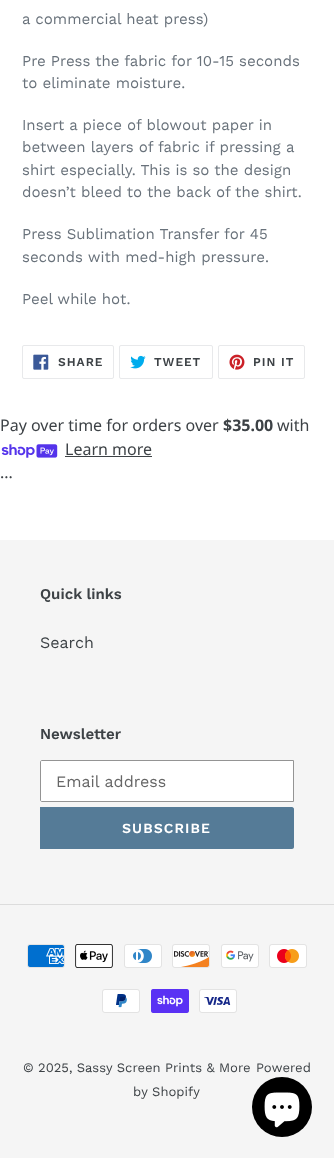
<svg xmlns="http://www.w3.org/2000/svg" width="334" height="1158">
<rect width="100%" height="100%" fill="#fff"/>
<text x="22" y="24" style="font-family:Work Sans;font-size:15px;fill:#69727b">a commercial heat press)</text>
<text x="22" y="66" style="font-family:Work Sans;font-size:15px;fill:#69727b">Pre Press the fabric for 10-15 seconds</text>
<text x="22" y="88" style="font-family:Work Sans;font-size:15px;fill:#69727b">to eliminate moisture.</text>
<text x="22" y="130" style="font-family:Work Sans;font-size:15px;fill:#69727b">Insert a piece of blowout paper in</text>
<text x="22" y="152" style="font-family:Work Sans;font-size:15px;fill:#69727b">between layers of fabric if pressing a</text>
<text x="22" y="175" style="font-family:Work Sans;font-size:15px;fill:#69727b">shirt especially. This is so the design</text>
<text x="22" y="197" style="font-family:Work Sans;font-size:15px;fill:#69727b">doesn’t bleed to the back of the shirt.</text>
<text x="22" y="239" style="font-family:Work Sans;font-size:15px;fill:#69727b">Press Sublimation Transfer for 45</text>
<text x="22" y="262" style="font-family:Work Sans;font-size:15px;fill:#69727b">seconds with med-high pressure.</text>
<text x="22" y="304" style="font-family:Work Sans;font-size:15px;fill:#69727b">Peel while hot.</text>
<rect x="22.5" y="345.5" width="91" height="33" rx="1.5" fill="none" stroke="#e8e9eb"/>
<image x="33" y="354" width="16" height="16" href="media/1.png"/>
<text x="58" y="366" style="font-family:Work Sans;font-size:12px;font-weight:600;letter-spacing:1px;fill:#3d4246">SHARE</text>
<rect x="119.5" y="345.5" width="93" height="33" rx="1.5" fill="none" stroke="#e8e9eb"/>
<image x="130" y="355" width="16" height="14" href="media/2.png"/>
<text x="154" y="366" style="font-family:Work Sans;font-size:12px;font-weight:600;letter-spacing:1px;fill:#3d4246">TWEET</text>
<rect x="218.5" y="345.5" width="86" height="33" rx="1.5" fill="none" stroke="#e8e9eb"/>
<image x="229" y="354" width="16" height="16" href="media/3.png"/>
<text x="253" y="366" style="font-family:Work Sans;font-size:12px;font-weight:600;letter-spacing:1px;fill:#3d4246">PIN IT</text>
<text x="0" y="431" style="font-family:Noto Sans;font-size:16px;fill:#3d4246">Pay over time for orders over</text>
<text x="223" y="431" style="font-family:Noto Sans;font-size:16px;font-weight:bold;fill:#3d4246">$35.00</text>
<text x="277" y="431" style="font-family:Noto Sans;font-size:16px;fill:#3d4246">with</text>
<image x="1" y="444" width="57" height="14" href="media/4.png"/>
<text x="65" y="455" style="font-family:Noto Sans;font-size:16px;fill:#3d4246">Learn more</text>
<rect x="65" y="456" width="87" height="1" fill="#3d4246"/>
<text x="0" y="478" style="font-family:Work Sans;font-size:16px;fill:#3d4246">...</text>
<rect y="540" width="334" height="618" fill="#f5f5f5"/>
<text x="40" y="599" style="font-family:Work Sans;font-size:15px;font-weight:600;fill:#3d4246">Quick links</text>
<text x="40" y="648" style="font-family:Work Sans;font-size:16px;fill:#3d4246">Search</text>
<text x="40" y="739" style="font-family:Work Sans;font-size:15px;font-weight:600;fill:#3d4246">Newsletter</text>
<path d="M42 760.5h251.5v41h-251.5c-1 0-1.5-.5-1.5-1.5v-38c0-1 .5-1.5 1.5-1.5z" fill="#fff" stroke="#949494"/>
<text x="56" y="787" style="font-family:Work Sans;font-size:16px;fill:#666">Email address</text>
<path d="M40 807h252c1 0 2 1 2 2v38c0 1-1 2-2 2h-252z" fill="#557b97"/>
<text x="122" y="833" style="font-family:Work Sans;font-size:14px;font-weight:600;letter-spacing:1.1px;fill:#fff">SUBSCRIBE</text>
<rect y="904" width="334" height="1" fill="#dcdcdc"/>
<image x="27" y="944" width="38" height="24" href="media/5.png"/>
<image x="75" y="944" width="38" height="24" href="media/6.png"/>
<image x="124" y="944" width="38" height="24" href="media/7.png"/>
<image x="172" y="944" width="38" height="24" href="media/8.png"/>
<image x="221" y="944" width="38" height="24" href="media/9.png"/>
<image x="269" y="944" width="38" height="24" href="media/10.png"/>
<image x="102" y="989" width="38" height="24" href="media/11.png"/>
<image x="151" y="989" width="38" height="24" href="media/12.png"/>
<image x="199" y="989" width="38" height="24" href="media/13.png"/>
<text x="23" y="1072" style="font-family:Work Sans;font-size:13px;fill:#3d4246">© 2025, Sassy Screen Prints &amp; More</text>
<text x="256" y="1072" style="font-family:Work Sans;font-size:13px;fill:#3d4246">Powered</text>
<text x="133" y="1096" style="font-family:Work Sans;font-size:13px;fill:#3d4246">by Shopify</text>
<circle cx="282" cy="1107" r="30" fill="#000"/>
<image x="264" y="1092" width="36" height="36" href="media/14.png"/>
</svg>
